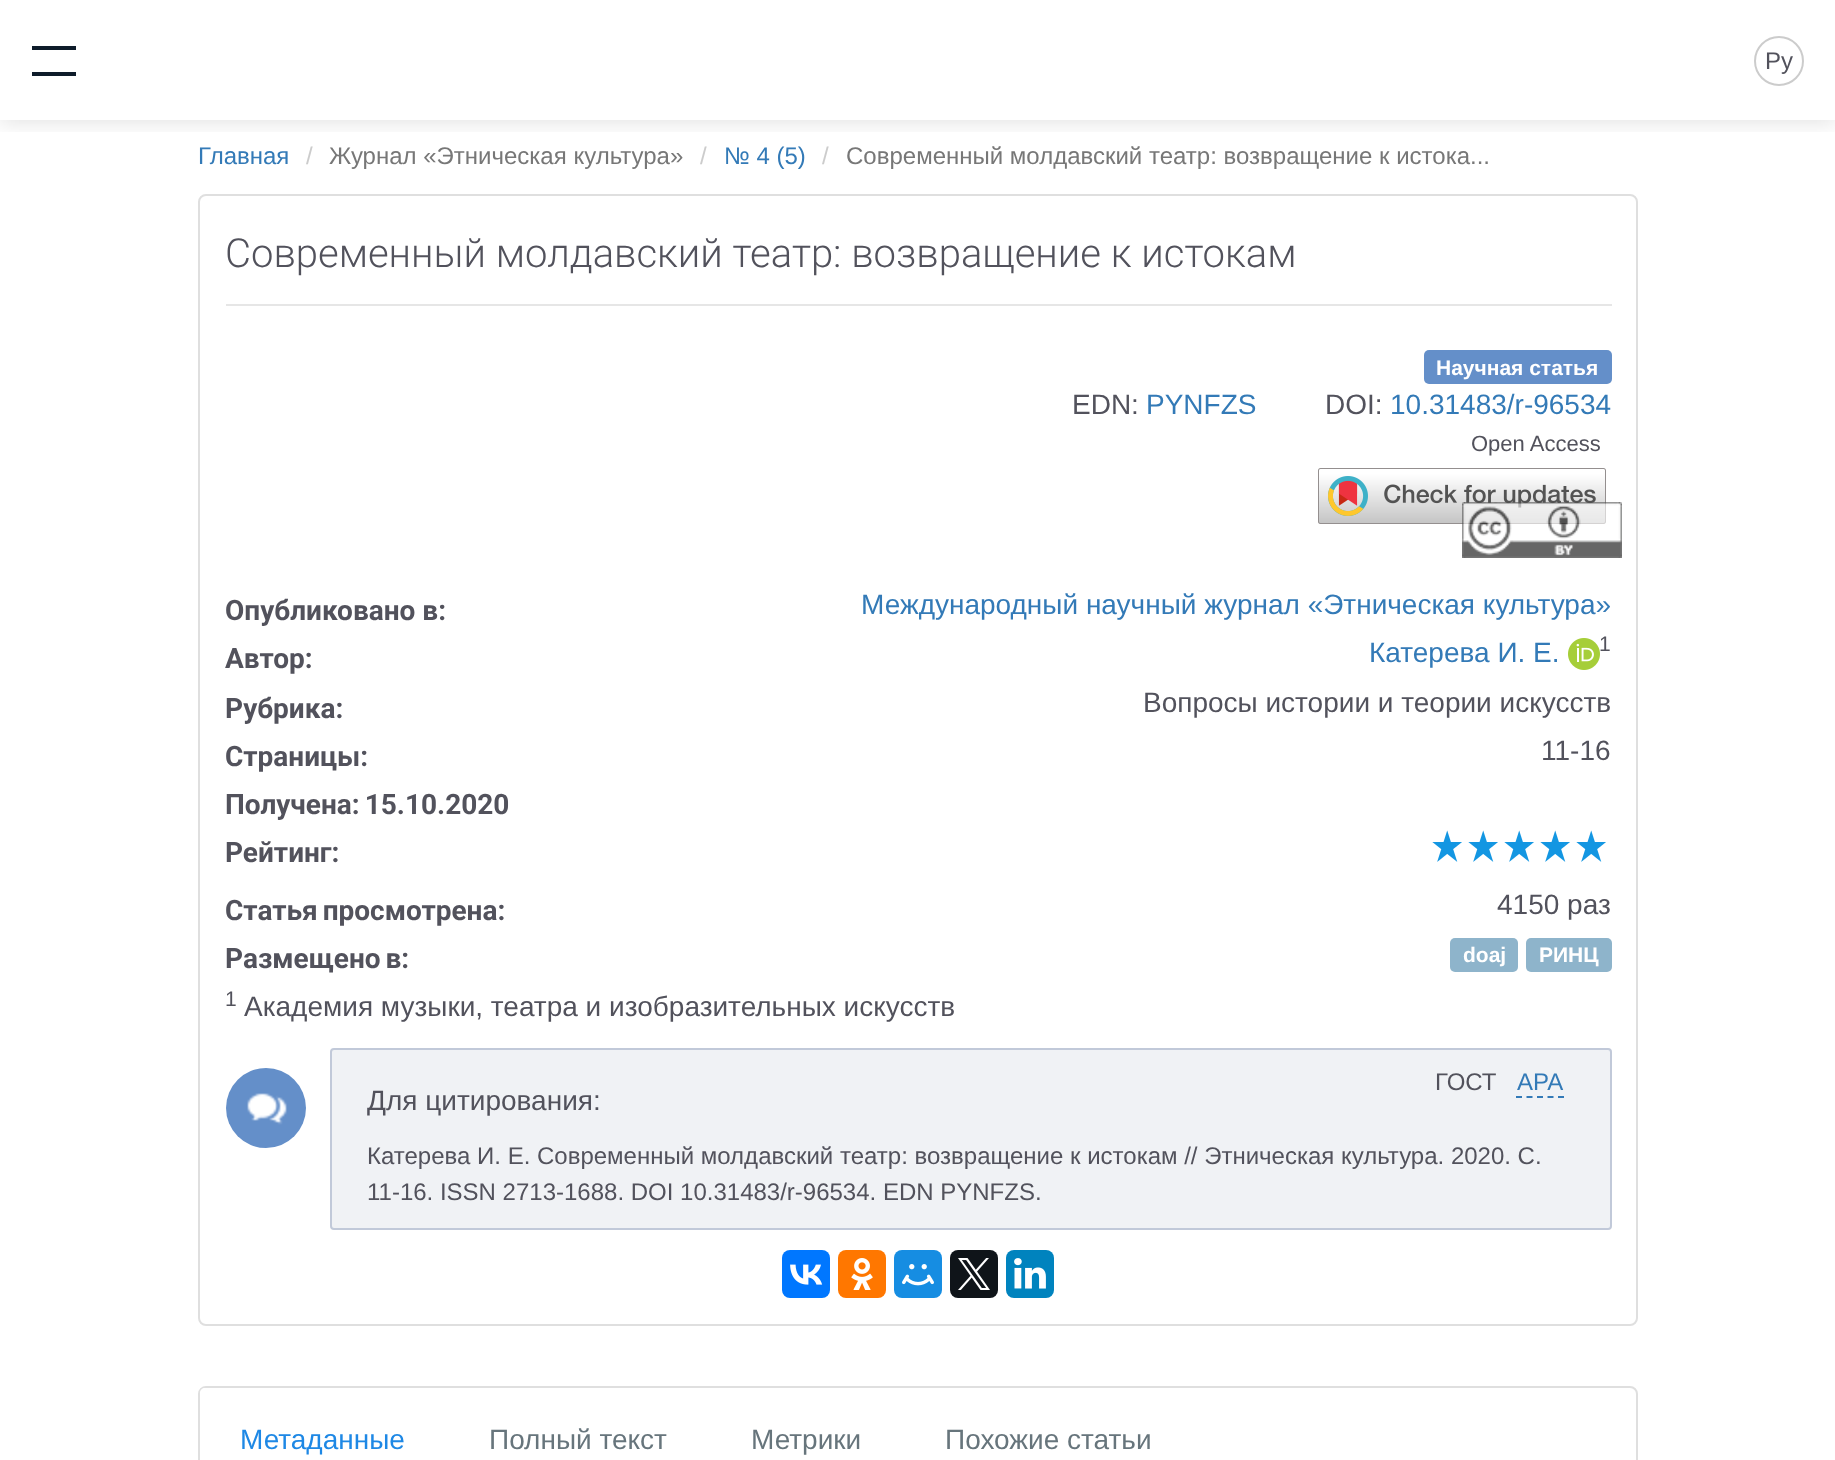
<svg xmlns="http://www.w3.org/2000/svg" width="1835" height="1460">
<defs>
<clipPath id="clip1"><rect x="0" y="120" width="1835" height="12"/></clipPath>
</defs>
<rect width="100%" height="100%" fill="#fff"/>
<g clip-path="url(#clip1)">
<rect y="4" width="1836" height="120" fill="#0000001a" filter="blur(10px)"/>
</g>
<rect x="32" y="46" width="44" height="4" fill="#0e1c2a"/>
<rect x="32" y="72" width="44" height="4" fill="#0e1c2a"/>
<circle cx="1779" cy="61" r="24" fill="none" stroke="#ccc" stroke-width="2"/>
<text x="1765" y="69" style="font-family:Liberation Sans;font-size:24px;fill:#52525c">Ру</text>
<text x="198" y="164" style="font-family:Liberation Sans;font-size:24px;fill:#337ab7">Главная</text>
<text x="306" y="164" style="font-family:Liberation Sans;font-size:24px;fill:#ccc">/</text>
<text x="329" y="164" style="font-family:Liberation Sans;font-size:24px;fill:#777">Журнал «Этническая культура»</text>
<text x="700" y="164" style="font-family:Liberation Sans;font-size:24px;fill:#ccc">/</text>
<text x="724" y="164" style="font-family:Liberation Sans;font-size:24px;fill:#337ab7">№ 4 (5)</text>
<text x="822" y="164" style="font-family:Liberation Sans;font-size:24px;fill:#ccc">/</text>
<text x="846" y="164" style="font-family:Liberation Sans;font-size:24px;fill:#777">Современный молдавский театр: возвращение к истока...</text>
<rect x="199" y="195" width="1438" height="1130" rx="7" fill="none" stroke="#dfdfdf" stroke-width="2"/>
<rect x="226" y="304" width="1386" height="2" fill="#e6e6e6"/>
<text x="225" y="267" style="font-family:Roboto;font-size:40px;font-weight:300;fill:#52525c">Современный молдавский театр: возвращение к истокам</text>
<rect x="1424" y="350" width="188" height="34" rx="5" fill="#648fc9"/>
<text x="1436" y="375" style="font-family:Liberation Sans;font-size:21px;font-weight:bold;fill:#fff">Научная статья</text>
<text x="1072" y="414" style="font-family:Liberation Sans;font-size:28px;fill:#52525c">EDN:</text>
<text x="1146" y="414" style="font-family:Liberation Sans;font-size:28px;fill:#337ab7">PYNFZS</text>
<text x="1325" y="414" style="font-family:Liberation Sans;font-size:28px;fill:#52525c">DOI:</text>
<text x="1390" y="414" style="font-family:Liberation Sans;font-size:28px;fill:#337ab7">10.31483/r-96534</text>
<text x="1471" y="451" style="font-family:Liberation Sans;font-size:22px;fill:#52525c">Open Access</text>
<image x="1318" y="468" width="288" height="56" href="media/1.png"/>
<image x="1462" y="502" width="160" height="56" href="media/2.png"/>
<text x="225" y="620" style="font-family:Roboto;font-size:28px;font-weight:bold;fill:#52525c">Опубликовано в:</text>
<text x="861" y="614" style="font-family:Liberation Sans;font-size:28px;fill:#337ab7">Международный научный журнал «Этническая культура»</text>
<text x="225" y="668" style="font-family:Roboto;font-size:28px;font-weight:bold;fill:#52525c">Автор:</text>
<text x="1369" y="662" style="font-family:Liberation Sans;font-size:28px;fill:#337ab7">Катерева И. Е.</text>
<image x="1568" y="638" width="32" height="32" href="media/3.png"/>
<text x="1599" y="651" style="font-family:Liberation Sans;font-size:21px;fill:#52525c">1</text>
<text x="225" y="718" style="font-family:Roboto;font-size:28px;font-weight:bold;fill:#52525c">Рубрика:</text>
<text x="1143" y="712" style="font-family:Liberation Sans;font-size:28px;fill:#52525c">Вопросы истории и теории искусств</text>
<text x="225" y="766" style="font-family:Roboto;font-size:28px;font-weight:bold;fill:#52525c">Страницы:</text>
<text x="1541" y="760" style="font-family:Liberation Sans;font-size:28px;fill:#52525c">11-16</text>
<text x="225" y="814" word-spacing="-2" style="font-family:Roboto;font-size:28px;font-weight:bold;fill:#52525c">Получена: 15.10.2020</text>
<text x="225" y="862" style="font-family:Roboto;font-size:28px;font-weight:bold;fill:#52525c">Рейтинг:</text>
<image x="1432" y="830" width="30" height="32" href="media/4.png"/>
<image x="1468" y="830" width="30" height="32" href="media/4.png"/>
<image x="1504" y="830" width="30" height="32" href="media/4.png"/>
<image x="1540" y="830" width="30" height="32" href="media/4.png"/>
<image x="1576" y="830" width="30" height="32" href="media/4.png"/>
<text x="225" y="920" word-spacing="-2" style="font-family:Roboto;font-size:28px;font-weight:bold;fill:#52525c">Статья просмотрена:</text>
<text x="1497" y="914" style="font-family:Liberation Sans;font-size:28px;fill:#52525c">4150 раз</text>
<text x="225" y="968" word-spacing="-2" style="font-family:Roboto;font-size:28px;font-weight:bold;fill:#52525c">Размещено в:</text>
<rect x="1450" y="938" width="68" height="34" rx="5" fill="#8eb4cb"/>
<text x="1463" y="962" style="font-family:Liberation Sans;font-size:21px;font-weight:bold;fill:#fff">doaj</text>
<rect x="1526" y="938" width="86" height="34" rx="5" fill="#8eb4cb"/>
<text x="1539" y="962" style="font-family:Liberation Sans;font-size:21px;font-weight:bold;fill:#fff">РИНЦ</text>
<text x="225" y="1006" style="font-family:Liberation Sans;font-size:21px;fill:#52525c">1</text>
<text x="244" y="1016" style="font-family:Liberation Sans;font-size:28px;fill:#52525c">Академия музыки, театра и изобразительных искусств</text>
<circle cx="266" cy="1108" r="40" fill="#648fc9"/>
<image x="247" y="1093" width="40" height="32" href="media/5.png"/>
<rect x="331" y="1049" width="1280" height="180" rx="3" fill="#f0f2f5" stroke="#c1c9d9" stroke-width="2"/>
<text x="1435" y="1090" style="font-family:Liberation Sans;font-size:24px;fill:#52525c">ГОСТ</text>
<text x="1517" y="1090" style="font-family:Liberation Sans;font-size:24px;fill:#337ab7">APA</text>
<path d="M1516 1097h48" fill="none" stroke="#337ab7" stroke-width="2" stroke-dasharray="6 4.5"/>
<text x="367" y="1110" style="font-family:Liberation Sans;font-size:28px;fill:#52525c">Для цитирования:</text>
<text x="367" y="1164" style="font-family:Liberation Sans;font-size:24px;fill:#52525c">Катерева И. Е. Современный молдавский театр: возвращение к истокам // Этническая культура. 2020. С.</text>
<text x="367" y="1200" style="font-family:Liberation Sans;font-size:24px;fill:#52525c">11-16. ISSN 2713-1688. DOI 10.31483/r-96534. EDN PYNFZS.</text>
<rect x="782" y="1250" width="48" height="48" rx="8" fill="#07f"/>
<image x="790" y="1264" width="33" height="21" href="media/6.png"/>
<rect x="838" y="1250" width="48" height="48" rx="8" fill="#f70"/>
<image x="851" y="1258" width="22" height="32" href="media/7.png"/>
<rect x="894" y="1250" width="48" height="48" rx="8" fill="#168de2"/>
<image x="902" y="1264" width="32" height="22" href="media/8.png"/>
<rect x="950" y="1250" width="48" height="48" rx="8" fill="#0f1419"/>
<image x="958" y="1258" width="32" height="32" href="media/9.png"/>
<rect x="1006" y="1250" width="48" height="48" rx="8" fill="#0083be"/>
<image x="1014" y="1258" width="32" height="31" href="media/10.png"/>
<rect x="199" y="1387" width="1438" height="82" rx="7" fill="none" stroke="#dfdfdf" stroke-width="2"/>
<path d="M205 1388h234c3 0 5 2 5 5v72h-244v-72c0-3 2-5 5-5z" fill="#fff"/>
<text x="240" y="1449" style="font-family:Liberation Sans;font-size:28px;fill:#1e88e5">Метаданные</text>
<text x="489" y="1449" style="font-family:Liberation Sans;font-size:28px;fill:#67757c">Полный текст</text>
<text x="751" y="1449" style="font-family:Liberation Sans;font-size:28px;fill:#67757c">Метрики</text>
<text x="945" y="1449" style="font-family:Liberation Sans;font-size:28px;fill:#67757c">Похожие статьи</text>
</svg>
